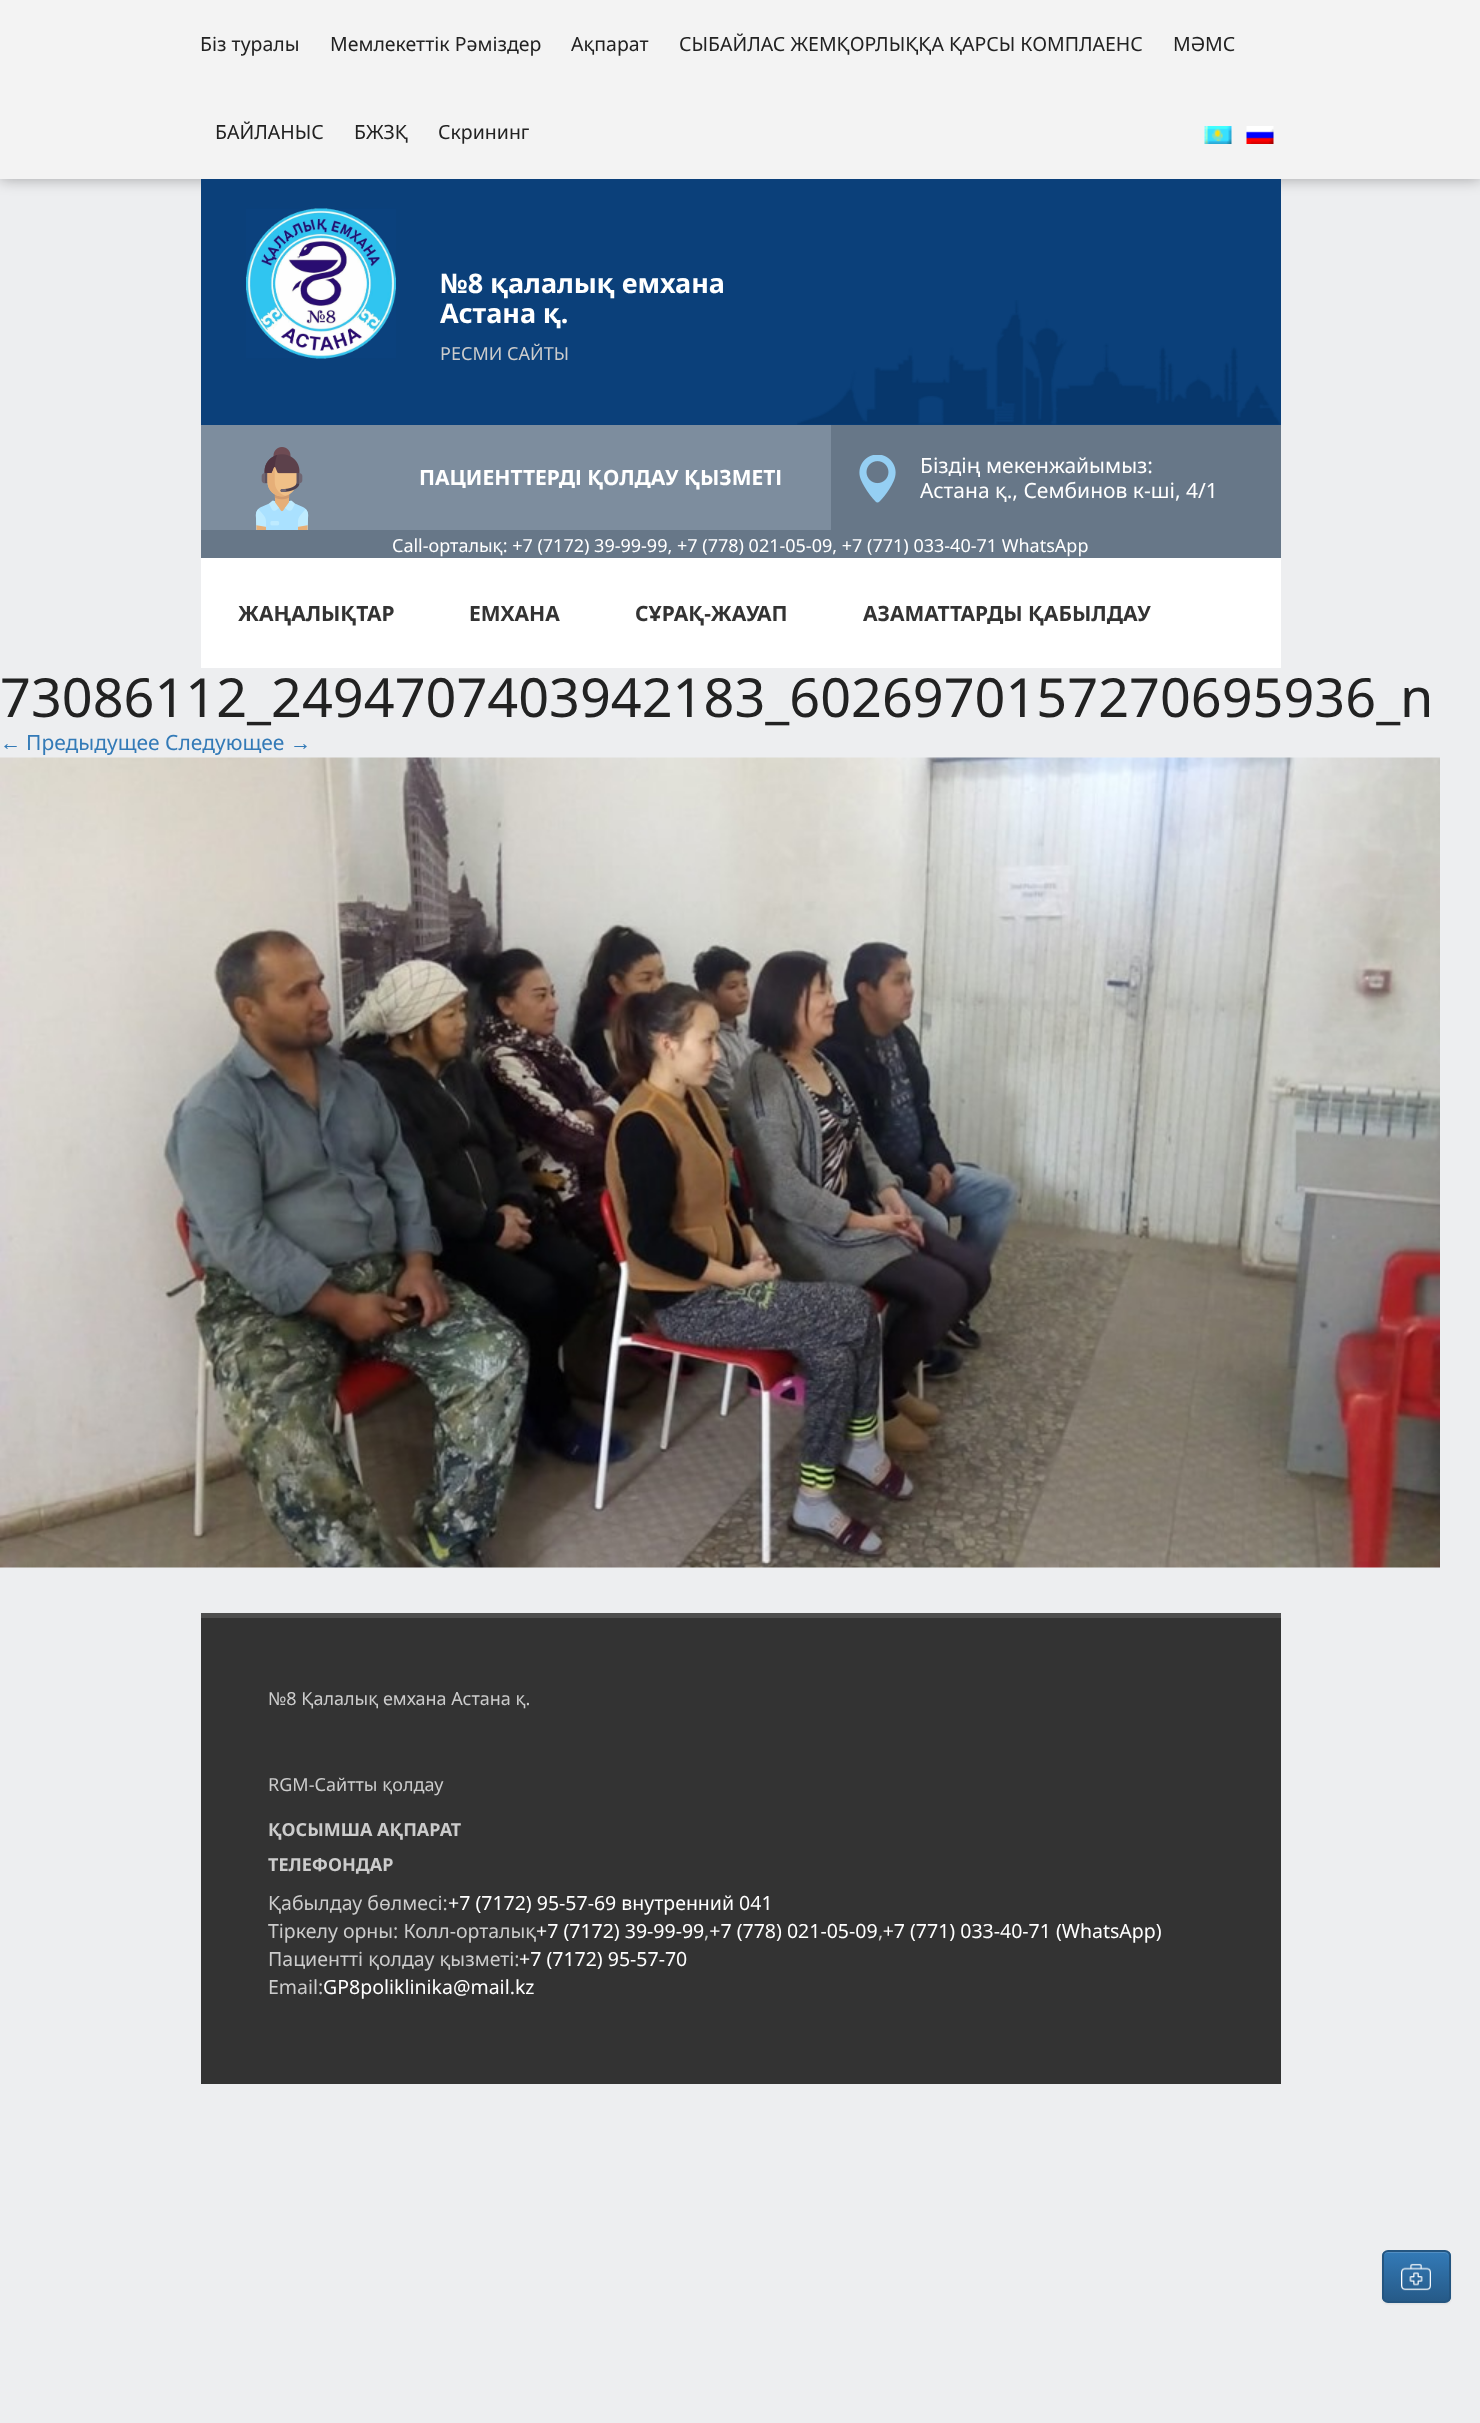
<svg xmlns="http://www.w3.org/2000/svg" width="1480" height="2423">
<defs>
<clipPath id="clip1"><rect x="1382" y="2250" width="69" height="53" rx="6"/></clipPath>
<linearGradient id="g1" gradientUnits="userSpaceOnUse" x1="1416" y1="2252" x2="1416" y2="2301"><stop offset="0" stop-color="#337ab7"/><stop offset="1" stop-color="#265a88"/></linearGradient>
</defs>
<rect width="100%" height="100%" fill="#edeef0"/>
<rect width="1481" height="179" fill="#00000052" filter="blur(7.5px)"/>
<rect width="1480" height="179" fill="#f3f3f3"/>
<text x="200" y="51" style="font-family:Noto Sans;font-size:19.5px;fill:#222">Біз туралы</text>
<text x="330" y="51" style="font-family:Noto Sans;font-size:19.5px;fill:#222">Мемлекеттік Рәміздер</text>
<text x="571" y="51" style="font-family:Noto Sans;font-size:19.5px;fill:#222">Ақпарат</text>
<text x="679" y="51" style="font-family:Noto Sans;font-size:19.5px;fill:#222">СЫБАЙЛАС ЖЕМҚОРЛЫҚҚА ҚАРСЫ КОМПЛАЕНС</text>
<text x="1173" y="51" style="font-family:Noto Sans;font-size:19.5px;fill:#222">МӘМС</text>
<text x="215" y="139" style="font-family:Noto Sans;font-size:19.5px;fill:#222">БАЙЛАНЫС</text>
<text x="354" y="139" style="font-family:Noto Sans;font-size:19.5px;fill:#222">БЖЗҚ</text>
<text x="438" y="139" style="font-family:Noto Sans;font-size:19.5px;fill:#222">Скрининг</text>
<image x="1204" y="126" width="28" height="18" href="media/1.png"/>
<image x="1246" y="126" width="28" height="18" href="media/2.png"/>
<rect x="201" y="179" width="1080" height="246" fill="#0b407a"/>
<image x="797" y="300" width="483" height="125" href="media/3.png"/>
<image x="246" y="208" width="150" height="151" href="media/4.png"/>
<text x="440" y="293" style="font-family:Noto Sans;font-size:27px;font-weight:bold;fill:#fff">№8 қалалық емхана</text>
<text x="440" y="323" style="font-family:Noto Sans;font-size:27px;font-weight:bold;fill:#fff">Астана қ.</text>
<text x="440" y="360" style="font-family:Noto Sans;font-size:18px;fill:#ccc">РЕСМИ САЙТЫ</text>
<rect x="201" y="425" width="1080" height="133" fill="#677788"/>
<rect x="201" y="425" width="630" height="105" fill="#7d8d9e"/>
<image x="255" y="447" width="54" height="83" href="media/5.png"/>
<text x="419" y="485" style="font-family:Noto Sans;font-size:21px;font-weight:bold;fill:#fff">ПАЦИЕНТТЕРДІ ҚОЛДАУ ҚЫЗМЕТІ</text>
<image x="859" y="455" width="37" height="48" href="media/6.png"/>
<text x="920" y="473" style="font-family:Noto Sans;font-size:21px;fill:#fff">Біздің мекенжайымыз:</text>
<text x="920" y="498" style="font-family:Noto Sans;font-size:21px;fill:#fff">Астана қ., Сембинов к-ші, 4/1</text>
<text x="392" y="552" style="font-family:Noto Sans;font-size:18px;fill:#fff">Call-орталық: +7 (7172) 39-99-99, +7 (778) 021-05-09, +7 (771) 033-40-71 WhatsApp</text>
<rect x="201" y="558" width="1080" height="110" fill="#fff"/>
<text x="238" y="621" style="font-family:Noto Sans;font-size:21px;font-weight:bold;fill:#333">ЖАҢАЛЫҚТАР</text>
<text x="469" y="621" style="font-family:Noto Sans;font-size:21px;font-weight:bold;fill:#333">ЕМХАНА</text>
<text x="635" y="621" style="font-family:Noto Sans;font-size:21px;font-weight:bold;fill:#333">СҰРАҚ-ЖАУАП</text>
<text x="863" y="621" style="font-family:Noto Sans;font-size:21px;font-weight:bold;fill:#333">АЗАМАТТАРДЫ ҚАБЫЛДАУ</text>
<text x="0" y="717" style="font-family:Noto Sans;font-size:54px;fill:#222">73086112_2494707403942183_6026970157270695936_n</text>
<text x="0" y="750" style="font-family:Liberation Sans;font-size:21px;fill:#337ab7">←</text>
<text x="26" y="750" style="font-family:Noto Sans;font-size:21px;fill:#337ab7">Предыдущее Следующее</text>
<text x="290" y="750" style="font-family:Liberation Sans;font-size:21px;fill:#337ab7">→</text>
<image x="0" y="757" width="1440" height="811" href="media/7.png"/>
<rect x="201" y="1618" width="1080" height="466" fill="#333"/>
<rect x="201" y="1613" width="1080" height="5" fill="#4e4e4e"/>
<text x="268" y="1705" style="font-family:Noto Sans;font-size:18px;fill:#ccc">№8 Қалалық емхана Астана қ.</text>
<text x="268" y="1791" style="font-family:Noto Sans;font-size:18px;fill:#ccc">RGM-Сайтты қолдау</text>
<text x="268" y="1836" style="font-family:Noto Sans;font-size:18px;font-weight:bold;fill:#ccc">ҚОСЫМША АҚПАРАТ</text>
<text x="268" y="1871" style="font-family:Noto Sans;font-size:18px;font-weight:bold;fill:#ccc">ТЕЛЕФОНДАР</text>
<text x="268" y="1910" style="font-family:Noto Sans;font-size:19.5px;fill:#ccc">Қабылдау бөлмесі:</text>
<text x="448" y="1910" style="font-family:Noto Sans;font-size:19.5px;fill:#fff">+7 (7172) 95-57-69 внутренний 041</text>
<text x="268" y="1938" style="font-family:Noto Sans;font-size:19.5px;fill:#ccc">Тіркелу орны: Колл-орталық</text>
<text x="536" y="1938" style="font-family:Noto Sans;font-size:19.5px;fill:#fff">+7 (7172) 39-99-99 +7 (778) 021-05-09 +7 (771) 033-40-71 (WhatsApp)</text>
<text x="704" y="1938" style="font-family:Noto Sans;font-size:19.5px;fill:#ccc">,</text>
<text x="878" y="1938" style="font-family:Noto Sans;font-size:19.5px;fill:#ccc">,</text>
<text x="268" y="1966" style="font-family:Noto Sans;font-size:19.5px;fill:#ccc">Пациентті қолдау қызметі:</text>
<text x="519" y="1966" style="font-family:Noto Sans;font-size:19.5px;fill:#fff">+7 (7172) 95-57-70</text>
<text x="268" y="1994" style="font-family:Noto Sans;font-size:19.5px;fill:#ccc">Email:</text>
<text x="323" y="1994" style="font-family:Noto Sans;font-size:19.5px;fill:#fff">GP8poliklinika@mail.kz</text>
<rect x="1382" y="2252" width="69" height="52" rx="6" fill="#00000012" filter="blur(1px)"/>
<g clip-path="url(#clip1)">
<rect x="1382" y="2252" width="69" height="49" fill="url(#g1)"/>
</g>
<path d="M1388 2253h56c3 0 5 2 5 5c0-8-8-6-14-6h-38c-6 0-14-2-14 6c0-3 2-5 5-5z" fill="#528ec2"/>
<rect x="1383" y="2251" width="67" height="51" rx="5" fill="none" stroke="#245580" stroke-width="2"/>
<image x="1401" y="2263" width="30" height="28" href="media/8.png"/>
</svg>
